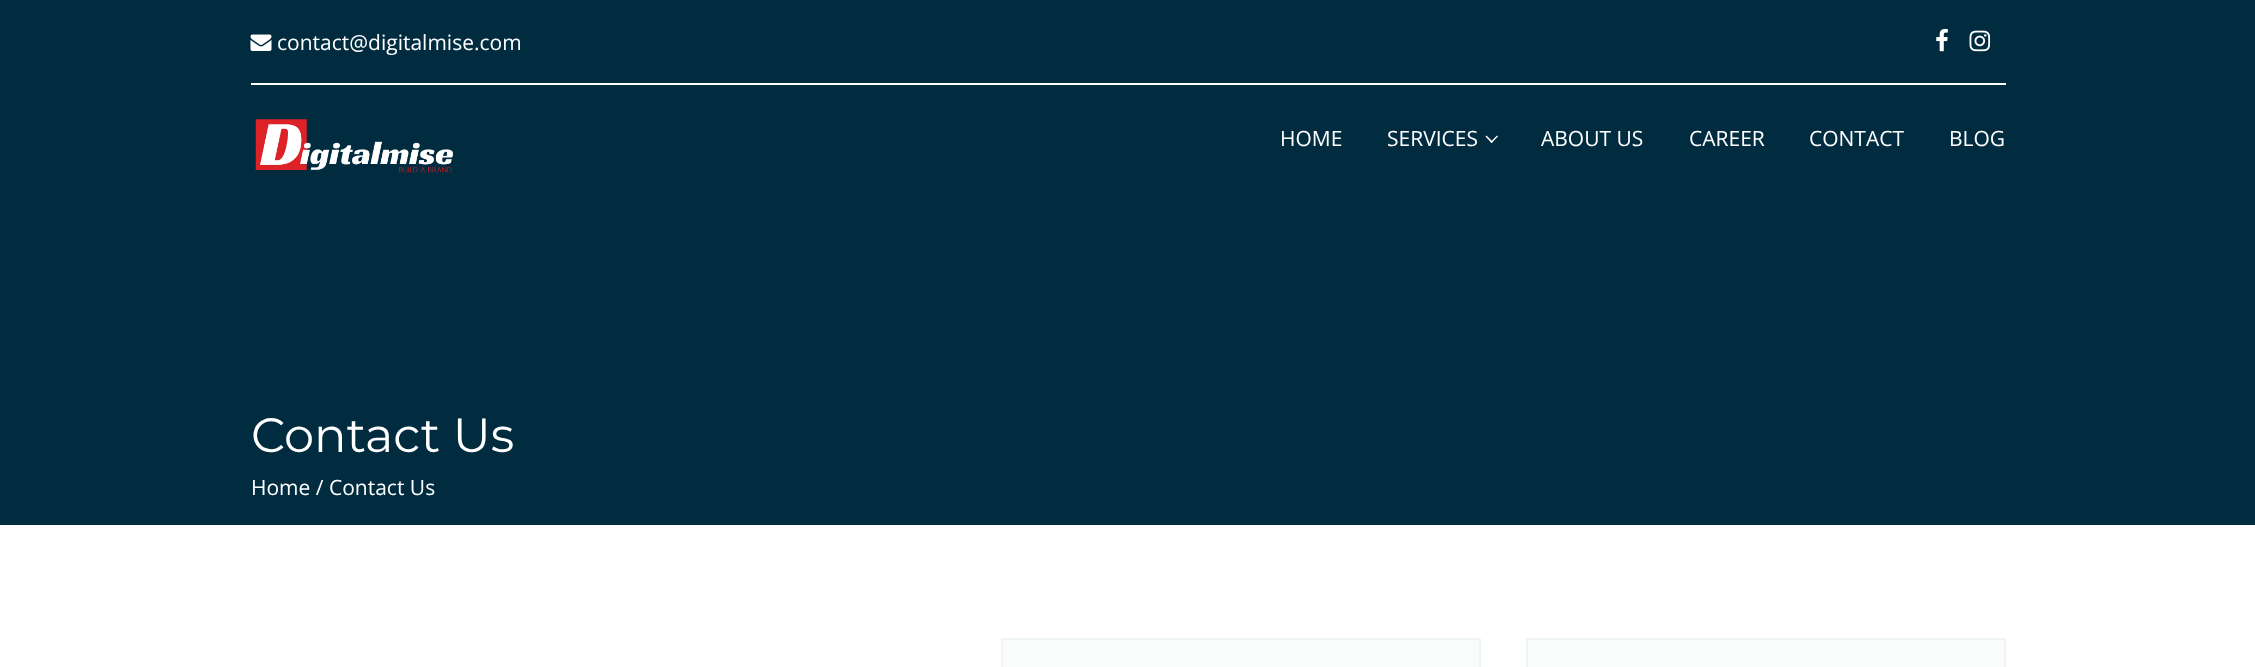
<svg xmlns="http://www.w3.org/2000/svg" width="2255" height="667">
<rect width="100%" height="100%" fill="#fff"/>
<rect width="2255" height="525" fill="#012c40"/>
<image x="250" y="34" width="22" height="17" href="media/1.png"/>
<text x="277" y="50" style="font-family:Open Sans;font-size:21px;fill:#fff">contact@digitalmise.com</text>
<image x="1936" y="28" width="12" height="24" href="media/2.png"/>
<image x="1969" y="30" width="22" height="22" href="media/3.png"/>
<rect x="251" y="83" width="1755" height="2" fill="#fff"/>
<image x="255" y="119" width="198" height="54" href="media/4.png"/>
<text x="1280" y="146" style="font-family:Open Sans;font-size:21px;fill:#fff">HOME</text>
<text x="1387" y="146" style="font-family:Open Sans;font-size:21px;fill:#fff">SERVICES</text>
<path d="M1497 135.5l1 1l-6.5 6.5l-1-1z" fill="#fff"/>
<path d="M1486.5 135.5l6.5 6.5l-1.5 1l-6-6.5z" fill="#fff"/>
<text x="1541" y="146" style="font-family:Open Sans;font-size:21px;fill:#fff">ABOUT US</text>
<text x="1689" y="146" style="font-family:Open Sans;font-size:21px;fill:#fff">CAREER</text>
<text x="1809" y="146" style="font-family:Open Sans;font-size:21px;fill:#fff">CONTACT</text>
<text x="1949" y="146" style="font-family:Open Sans;font-size:21px;fill:#fff">BLOG</text>
<text x="251" y="452" style="font-family:Montserrat;font-size:48px;font-weight:100;fill:#fff">Contact Us</text>
<text x="251" y="495" style="font-family:Open Sans;font-size:21px;fill:#fff">Home / Contact Us</text>
<rect x="1002" y="639" width="478" height="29" fill="#fafcfc" stroke="#eff5f5" stroke-width="2"/>
<rect x="1527" y="639" width="478" height="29" fill="#fafcfc" stroke="#eff5f5" stroke-width="2"/>
</svg>
